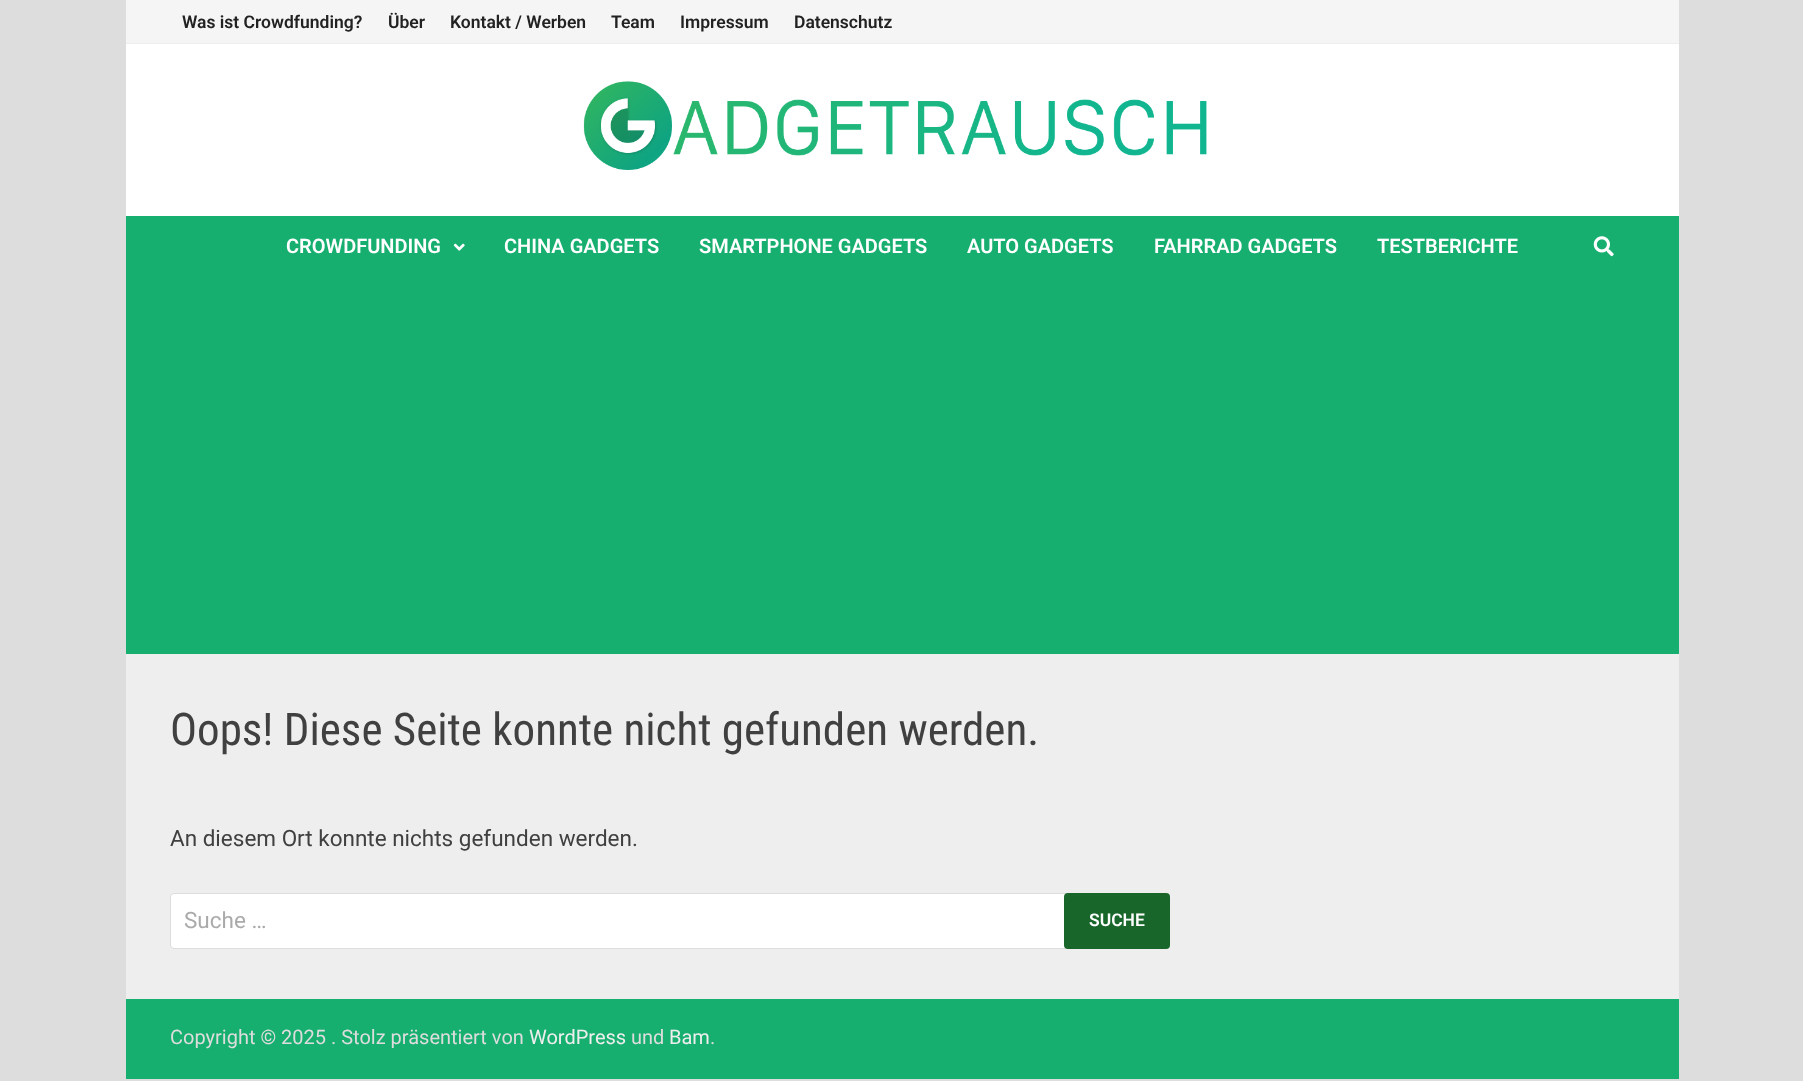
<svg xmlns="http://www.w3.org/2000/svg" width="1803" height="1081">
<rect width="100%" height="100%" fill="#ddd"/>
<rect x="126" y="44" width="1553" height="172" fill="#fff"/>
<rect x="126" width="1553" height="43" fill="#f5f5f5"/>
<rect x="126" y="43" width="1553" height="1" fill="#eee"/>
<text x="182" y="28" style="font-family:Roboto;font-size:17.5px;font-weight:600;fill:#222">Was ist Crowdfunding?</text>
<text x="388" y="28" style="font-family:Roboto;font-size:17.5px;font-weight:600;fill:#222">Über</text>
<text x="450" y="28" style="font-family:Roboto;font-size:17.5px;font-weight:600;fill:#222">Kontakt / Werben</text>
<text x="611" y="28" style="font-family:Roboto;font-size:17.5px;font-weight:600;fill:#222">Team</text>
<text x="680" y="28" style="font-family:Roboto;font-size:17.5px;font-weight:600;fill:#222">Impressum</text>
<text x="794" y="28" style="font-family:Roboto;font-size:17.5px;font-weight:600;fill:#222">Datenschutz</text>
<image x="583" y="81" width="624" height="89" href="media/1.png"/>
<rect x="126" y="216" width="1553" height="438" fill="#16af6f"/>
<text x="286" y="253" style="font-family:Roboto;font-size:20px;font-weight:600;fill:#fff">CROWDFUNDING</text>
<image x="453" y="243" width="12" height="8" href="media/2.png"/>
<text x="504" y="253" style="font-family:Roboto;font-size:20px;font-weight:600;fill:#fff">CHINA GADGETS</text>
<text x="699" y="253" style="font-family:Roboto;font-size:20px;font-weight:600;fill:#fff">SMARTPHONE GADGETS</text>
<text x="967" y="253" style="font-family:Roboto;font-size:20px;font-weight:600;fill:#fff">AUTO GADGETS</text>
<text x="1154" y="253" style="font-family:Roboto;font-size:20px;font-weight:600;fill:#fff">FAHRRAD GADGETS</text>
<text x="1377" y="253" style="font-family:Roboto;font-size:20px;font-weight:600;fill:#fff">TESTBERICHTE</text>
<image x="1593" y="236" width="21" height="21" href="media/3.png"/>
<rect x="126" y="654" width="1553" height="345" fill="#eee"/>
<text x="170" y="745" style="font-family:Roboto Condensed;font-size:45px;fill:#404040">Oops! Diese Seite konnte nicht gefunden werden.</text>
<text x="170" y="846" style="font-family:Roboto;font-size:22.5px;fill:#404040">An diesem Ort konnte nichts gefunden werden.</text>
<rect x="170.5" y="893.5" width="999" height="55" rx="3.5" fill="#fff" stroke="#ddd"/>
<text x="184" y="928" style="font-family:Roboto;font-size:22.5px;fill:#aaa">Suche …</text>
<rect x="1064" y="893" width="106" height="56" rx="4" fill="#19662a"/>
<text x="1089" y="926" style="font-family:Roboto;font-size:17.5px;font-weight:600;fill:#fff">SUCHE</text>
<rect x="126" y="999" width="1553" height="80" fill="#16af6f"/>
<text x="170" y="1044" style="font-family:Roboto;font-size:20px;fill:#ddd">Copyright © 2025 . Stolz präsentiert von</text>
<text x="529" y="1044" style="font-family:Roboto;font-size:20px;fill:#eee">WordPress</text>
<text x="631" y="1044" style="font-family:Roboto;font-size:20px;fill:#ddd">und</text>
<text x="669" y="1044" style="font-family:Roboto;font-size:20px;fill:#eee">Bam</text>
<text x="710" y="1044" style="font-family:Roboto;font-size:20px;fill:#ddd">.</text>
</svg>
